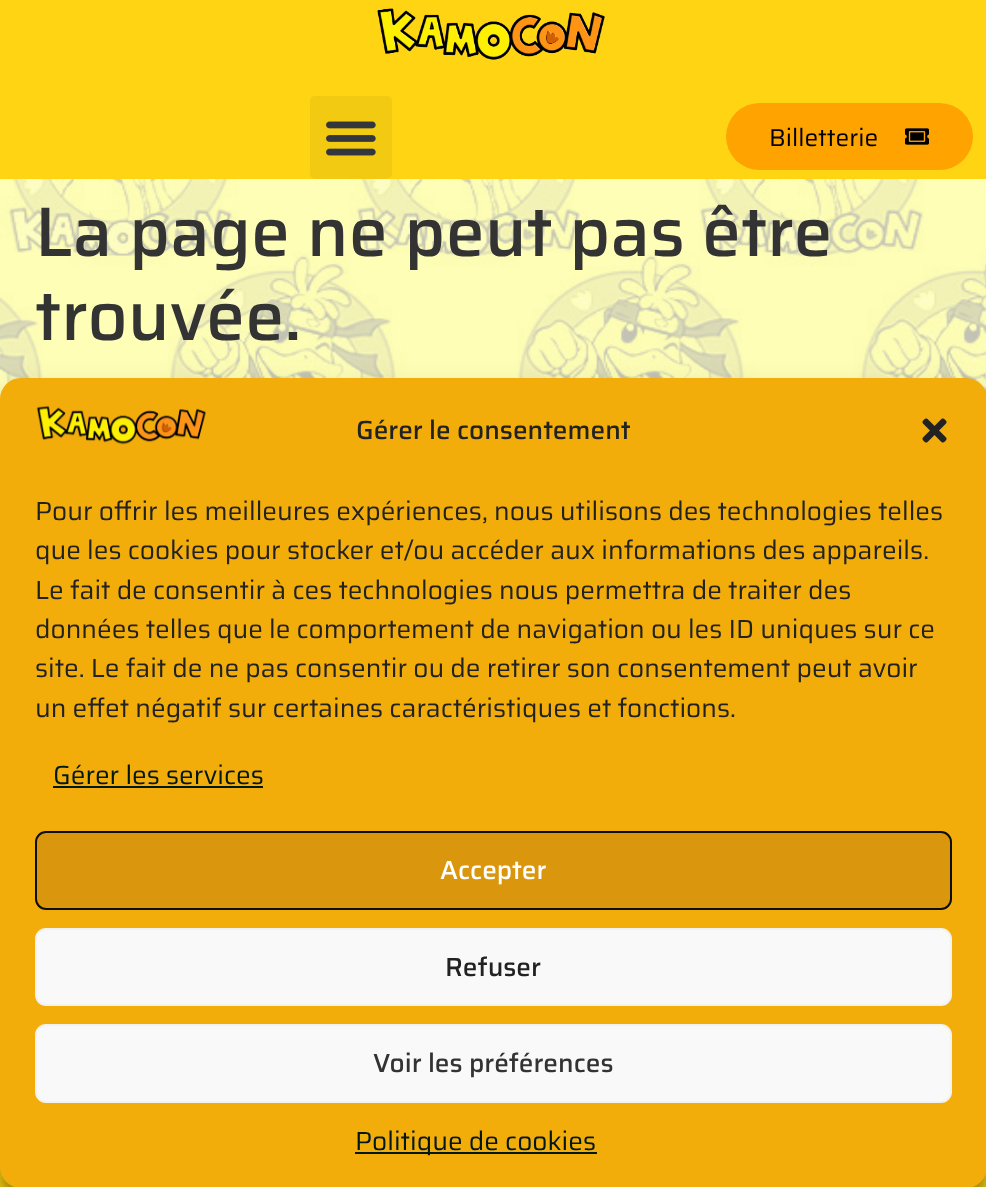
<svg xmlns="http://www.w3.org/2000/svg" width="986" height="1187">
<rect width="100%" height="100%" fill="#fff"/>
<image x="0" y="179" width="986" height="220" href="media/1.png"/>
<rect width="986" height="179" fill="#ffd513"/>
<image x="377" y="8" width="231" height="52" href="media/2.png"/>
<rect x="310" y="96" width="82" height="83" rx="5" fill="#f2ca12"/>
<image x="326" y="121" width="50" height="35" href="media/3.png"/>
<rect x="726" y="103" width="247" height="67" rx="33.5" fill="#ffa300"/>
<text x="769" y="146" style="font-family:Saira;font-size:24.5px;fill:#000">Billetterie</text>
<image x="905" y="128" width="24" height="17" href="media/4.png"/>
<text x="35" y="256" style="font-family:Saira;font-size:70px;font-weight:500;fill:#333">La page ne peut pas être</text>
<text x="35" y="340" style="font-family:Saira;font-size:70px;font-weight:500;fill:#333">trouvée.</text>
<rect y="1167" width="986" height="20" fill="#ffd513"/>
<rect y="389" width="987" height="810" rx="21" fill="#0000003b" filter="blur(5px)"/>
<rect y="396" width="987" height="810" rx="21" fill="#00000030" filter="blur(17.5px)"/>
<rect y="378" width="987" height="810" rx="21" fill="#f3ad0b"/>
<image x="36" y="405" width="170" height="40" href="media/5.png"/>
<text x="356" y="439" style="font-family:Saira;font-size:26.25px;font-weight:500;fill:#222">Gérer le consentement</text>
<image x="922" y="418" width="25" height="25" href="media/6.png"/>
<text x="35" y="520" style="font-family:Saira;font-size:26.25px;fill:#222">Pour offrir les meilleures expériences, nous utilisons des technologies telles</text>
<text x="35" y="559" style="font-family:Saira;font-size:26.25px;fill:#222">que les cookies pour stocker et/ou accéder aux informations des appareils.</text>
<text x="35" y="599" style="font-family:Saira;font-size:26.25px;fill:#222">Le fait de consentir à ces technologies nous permettra de traiter des</text>
<text x="35" y="638" style="font-family:Saira;font-size:26.25px;fill:#222">données telles que le comportement de navigation ou les ID uniques sur ce</text>
<text x="35" y="677" style="font-family:Saira;font-size:26.25px;fill:#222">site. Le fait de ne pas consentir ou de retirer son consentement peut avoir</text>
<text x="35" y="717" style="font-family:Saira;font-size:26.25px;fill:#222">un effet négatif sur certaines caractéristiques et fonctions.</text>
<text x="53" y="784" style="font-family:Saira;font-size:26.25px;fill:#001818">Gérer les services</text>
<rect x="53" y="786" width="210" height="2" fill="#001818"/>
<rect x="36" y="832" width="915" height="77" rx="10" fill="#da970e" stroke="#0e0e0e" stroke-width="2"/>
<text x="440" y="879" style="font-family:Saira;font-size:26.25px;font-weight:500;fill:#fff">Accepter</text>
<rect x="36" y="929" width="915" height="76" rx="10" fill="#f9f9f9" stroke="#f2f2f2" stroke-width="2"/>
<text x="445" y="976" style="font-family:Saira;font-size:26.25px;font-weight:500;fill:#222">Refuser</text>
<rect x="36" y="1025" width="915" height="77" rx="10" fill="#f9f9f9" stroke="#f2f2f2" stroke-width="2"/>
<text x="373" y="1072" style="font-family:Saira;font-size:26.25px;font-weight:500;fill:#333">Voir les préférences</text>
<rect x="355" y="1152" width="242" height="2" fill="#001818"/>
<text x="355" y="1150" style="font-family:Saira;font-size:26.25px;fill:#001818">Politique de cookies</text>
</svg>
